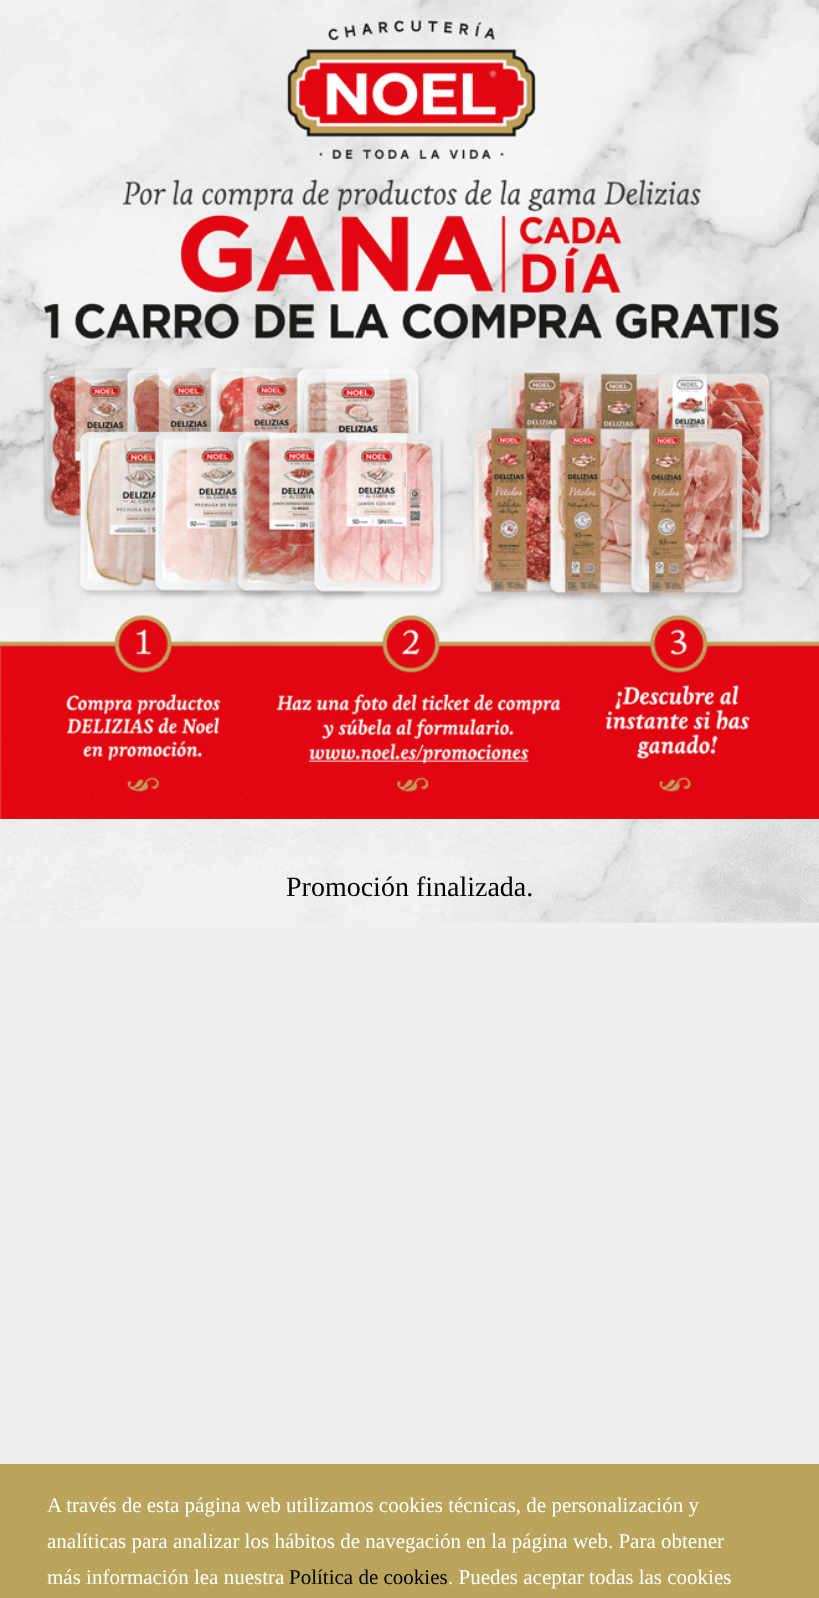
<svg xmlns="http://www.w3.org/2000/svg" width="819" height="1598">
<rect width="100%" height="100%" fill="#efeef1"/>
<image x="0" y="0" width="819" height="819" href="media/1.png"/>
<image x="0" y="819" width="819" height="104" href="media/2.png"/>
<text x="286" y="896" style="font-family:Liberation Serif;font-size:28px;fill:#000">Promoción finalizada.</text>
<rect y="1464" width="819" height="134" fill="#baa45b"/>
<text x="47" y="1512" style="font-family:Liberation Serif;font-size:21px;fill:#fff">A través de esta página web utilizamos cookies técnicas, de personalización y</text>
<text x="47" y="1548" style="font-family:Liberation Serif;font-size:21px;fill:#fff">analíticas para analizar los hábitos de navegación en la página web. Para obtener</text>
<text x="47" y="1584" style="font-family:Liberation Serif;font-size:21px;fill:#fff">más información lea nuestra</text>
<text x="289" y="1584" style="font-family:Liberation Serif;font-size:21px;fill:#000">Política de cookies</text>
<text x="448" y="1584" style="font-family:Liberation Serif;font-size:21px;fill:#fff">. Puedes aceptar todas las cookies</text>
</svg>
